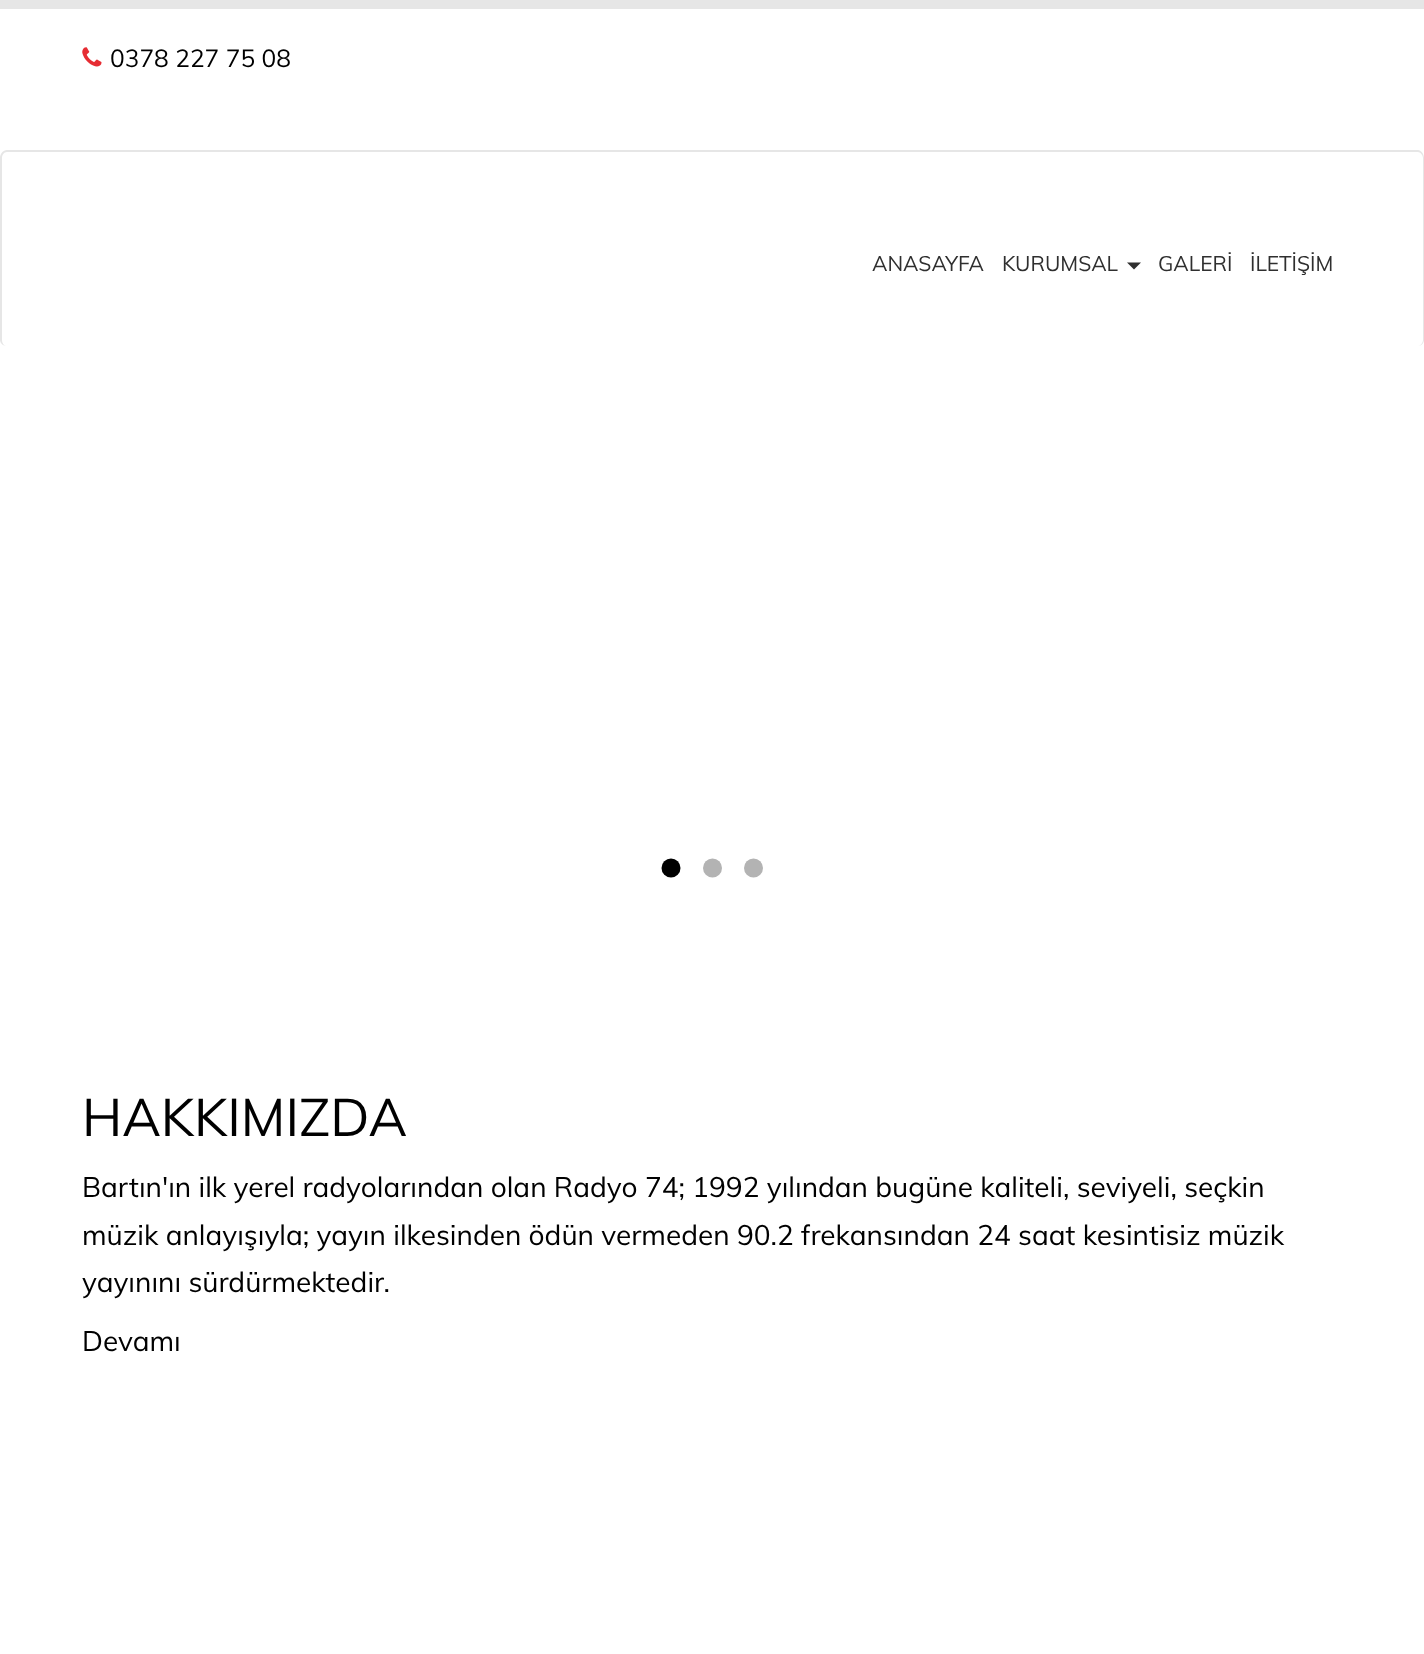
<svg xmlns="http://www.w3.org/2000/svg" width="1424" height="1654">
<rect width="100%" height="100%" fill="#fff"/>
<rect width="1424" height="9" fill="#e6e6e6"/>
<image x="82" y="47" width="20" height="20" href="media/1.png"/>
<text x="110" y="67" style="font-family:Muli;font-size:24.5px;fill:#000">0378 227 75 08</text>
<path d="M7 150h1411c3 0 6 4 6 8v182c0 3-3 6-6 6h-1411c-4 0-7-3-7-6v-182c0-4 3-8 7-8zm0 2h1411c2 0 5 3 5 6v182c0 3-3 6-5 6h-1411c-3 0-5-3-5-6v-182c0-3 2-6 5-6z" fill="#e6e6e6" fill-rule="evenodd"/>
<text x="872" y="271" style="font-family:Muli;font-size:21px;fill:#2f2f2f">ANASAYFA</text>
<text x="1002" y="271" style="font-family:Muli;font-size:21px;fill:#2f2f2f">KURUMSAL</text>
<path d="M1127 262.5h14l-7 7z" fill="#2f2f2f"/>
<text x="1158" y="271" style="font-family:Muli;font-size:21px;fill:#2f2f2f">GALERİ</text>
<text x="1250" y="271" style="font-family:Muli;font-size:21px;fill:#2f2f2f">İLETİŞİM</text>
<circle cx="671" cy="868" r="9.5" fill="#000"/>
<circle cx="712.5" cy="868" r="9.5" fill="#b3b3b3"/>
<circle cx="753.5" cy="868" r="9.5" fill="#b3b3b3"/>
<text x="82" y="1136" style="font-family:Muli;font-size:52.5px;fill:#000">HAKKIMIZDA</text>
<text x="82" y="1197" style="font-family:Muli;font-size:28px;fill:#000">Bartın'ın ilk yerel radyolarından olan Radyo 74; 1992 yılından bugüne kaliteli, seviyeli, seçkin</text>
<text x="82" y="1245" style="font-family:Muli;font-size:28px;fill:#000">müzik anlayışıyla; yayın ilkesinden ödün vermeden 90.2 frekansından 24 saat kesintisiz müzik</text>
<text x="82" y="1292" style="font-family:Muli;font-size:28px;fill:#000">yayınını sürdürmektedir.</text>
<text x="82" y="1351" style="font-family:Muli;font-size:28px;fill:#000">Devamı</text>
</svg>
